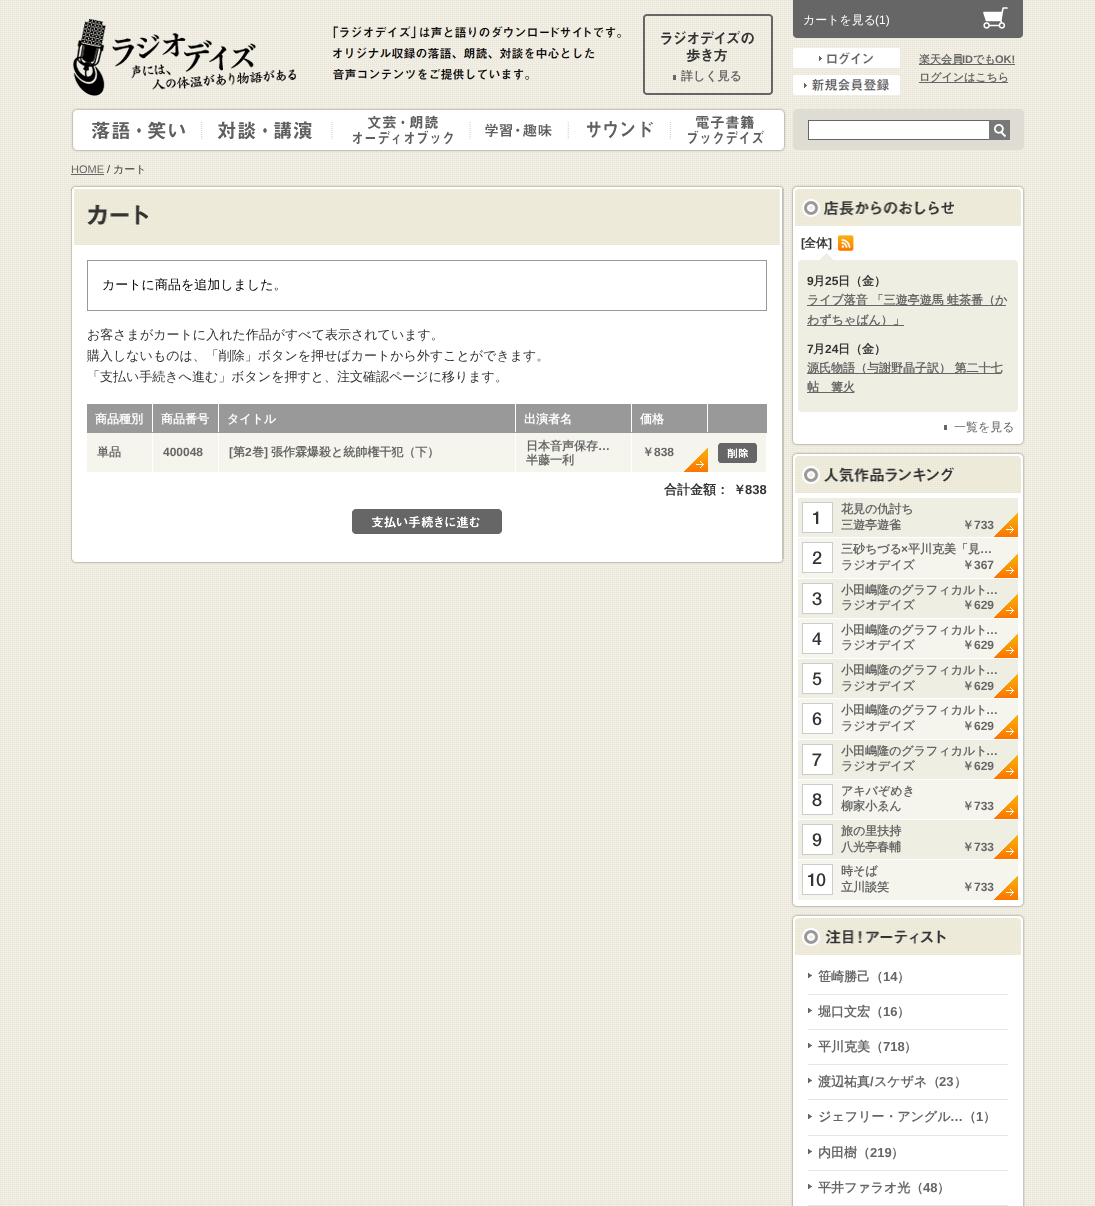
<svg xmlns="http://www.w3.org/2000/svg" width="1095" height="1206">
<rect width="100%" height="100%" fill="#f1efe5"/>
<image x="0" y="0" width="1095" height="1205" href="media/1.png"/>
<image x="73" y="19" width="223" height="77" href="media/2.png"/>
<image x="333" y="26" width="289" height="54" href="media/3.png"/>
<image x="643" y="91" width="130" height="4" href="media/4.png"/>
<image x="643" y="14" width="130" height="54" href="media/5.png"/>
<image x="643" y="68" width="130" height="23" href="media/6.png"/>
<text x="681" y="80" style="font-family:WenQuanYi Zen Hei;font-size:12px;font-weight:bold;fill:#666">詳しく見る</text>
<rect x="673" y="75" width="3" height="5" fill="#666"/>
<rect x="793" width="230" height="35" fill="#666"/>
<image x="793" y="35" width="230" height="3" href="media/7.png"/>
<image x="983" y="7" width="25" height="22" href="media/8.png"/>
<text x="803" y="24" style="font-family:WenQuanYi Zen Hei;font-size:12px;font-weight:500;fill:#fff">カートを見る</text>
<text x="875" y="24" style="font-family:Liberation Sans;font-size:12px;fill:#fff">(1)</text>
<image x="793" y="48" width="107" height="20" href="media/9.png"/>
<image x="793" y="75" width="107" height="20" href="media/10.png"/>
<rect x="919" y="64" width="96" height="1" fill="#666"/>
<text x="919" y="63" style="font-family:WenQuanYi Zen Hei;font-size:11px;font-weight:bold;fill:#666">楽天会員</text>
<text x="962" y="63" style="font-family:Liberation Sans;font-size:11px;font-weight:bold;fill:#666">ID</text>
<text x="973" y="63" style="font-family:WenQuanYi Zen Hei;font-size:11px;font-weight:bold;fill:#666">でも</text>
<text x="995" y="63" style="font-family:Liberation Sans;font-size:11px;font-weight:bold;fill:#666">OK!</text>
<rect x="919" y="82" width="89" height="1" fill="#666"/>
<text x="919" y="81" style="font-family:WenQuanYi Zen Hei;font-size:11px;font-weight:bold;fill:#666">ログインはこちら</text>
<image x="71" y="108" width="715" height="44" href="media/11.png"/>
<image x="92" y="121" width="93" height="19" href="media/12.png"/>
<image x="217" y="121" width="95" height="19" href="media/13.png"/>
<image x="352" y="115" width="101" height="30" href="media/14.png"/>
<image x="485" y="123" width="67" height="14" href="media/15.png"/>
<image x="587" y="121" width="66" height="18" href="media/16.png"/>
<image x="688" y="115" width="76" height="30" href="media/17.png"/>
<image x="793" y="109" width="231" height="41" href="media/18.png"/>
<rect x="808.5" y="120.5" width="181" height="19" fill="#fff" stroke="#666"/>
<image x="989" y="120" width="21" height="20" href="media/19.png"/>
<text x="71" y="173" style="font-family:Liberation Sans;font-size:11px;fill:#666">HOME</text>
<rect x="71" y="174" width="33" height="1" fill="#666"/>
<text x="107" y="173" style="font-family:Liberation Sans;font-size:11px;fill:#333">/</text>
<text x="113" y="173" style="font-family:WenQuanYi Zen Hei;font-size:11px;font-weight:500;fill:#333">カート</text>
<image x="71" y="185" width="713" height="5" href="media/20.png"/>
<image x="71" y="559" width="713" height="5" href="media/21.png"/>
<image x="71" y="189" width="713" height="370" href="media/22.png"/>
<image x="74" y="189" width="706" height="56" href="media/23.png"/>
<image x="87" y="204" width="62" height="21" href="media/24.png"/>
<rect x="87.5" y="260.5" width="679" height="50" fill="none" stroke="#999"/>
<text x="102" y="289" style="font-family:WenQuanYi Zen Hei;font-size:13px;font-weight:500;fill:#000">カートに商品を追加しました。</text>
<text x="87" y="339" style="font-family:WenQuanYi Zen Hei;font-size:13px;font-weight:500;fill:#333">お客さまがカートに入れた作品がすべて表示されています。</text>
<text x="87" y="360" style="font-family:WenQuanYi Zen Hei;font-size:13px;font-weight:500;fill:#333">購入しないものは、「削除」ボタンを押せばカートから外すことができます。</text>
<text x="87" y="381" style="font-family:WenQuanYi Zen Hei;font-size:13px;font-weight:500;fill:#333">「支払い手続きへ進む」ボタンを押すと、注文確認ページに移ります。</text>
<rect x="87" y="404" width="680" height="29" fill="#999"/>
<rect x="152" y="404" width="1" height="28" fill="#fff"/>
<text x="95" y="423" style="font-family:WenQuanYi Zen Hei;font-size:12px;font-weight:bold;fill:#fff">商品種別</text>
<rect x="218" y="404" width="1" height="28" fill="#fff"/>
<text x="161" y="423" style="font-family:WenQuanYi Zen Hei;font-size:12px;font-weight:bold;fill:#fff">商品番号</text>
<rect x="515" y="404" width="1" height="28" fill="#fff"/>
<text x="227" y="423" style="font-family:WenQuanYi Zen Hei;font-size:12px;font-weight:bold;fill:#fff">タイトル</text>
<rect x="631" y="404" width="1" height="28" fill="#fff"/>
<text x="524" y="423" style="font-family:WenQuanYi Zen Hei;font-size:12px;font-weight:bold;fill:#fff">出演者名</text>
<rect x="707" y="404" width="1" height="28" fill="#fff"/>
<text x="640" y="423" style="font-family:WenQuanYi Zen Hei;font-size:12px;font-weight:bold;fill:#fff">価格</text>
<rect x="87" y="433" width="65" height="39" fill="#f5f5ee"/>
<text x="97" y="456" style="font-family:WenQuanYi Zen Hei;font-size:12px;font-weight:bold;fill:#666">単品</text>
<rect x="153" y="433" width="65" height="39" fill="#f5f5ee"/>
<text x="163" y="456" style="font-family:Liberation Sans;font-size:12px;font-weight:bold;fill:#666">400048</text>
<rect x="219" y="433" width="296" height="39" fill="#f5f5ee"/>
<text x="229" y="456" style="font-family:Liberation Sans;font-size:12px;font-weight:bold;fill:#666">[</text>
<text x="233" y="456" style="font-family:WenQuanYi Zen Hei;font-size:12px;font-weight:bold;fill:#666">第</text>
<text x="245" y="456" style="font-family:Liberation Sans;font-size:12px;font-weight:bold;fill:#666">2</text>
<text x="252" y="456" style="font-family:WenQuanYi Zen Hei;font-size:12px;font-weight:bold;fill:#666">巻</text>
<text x="264" y="456" style="font-family:Liberation Sans;font-size:12px;font-weight:bold;fill:#666">]</text>
<text x="271" y="456" style="font-family:WenQuanYi Zen Hei;font-size:12px;font-weight:bold;fill:#666">張作霖爆殺と統帥権干犯（下）</text>
<rect x="516" y="433" width="115" height="39" fill="#f5f5ee"/>
<text x="526" y="450" style="font-family:WenQuanYi Zen Hei;font-size:12px;font-weight:bold;fill:#666">日本音声保存</text>
<text x="598" y="450" style="font-family:Liberation Sans;font-size:12px;font-weight:bold;fill:#666">…</text>
<text x="526" y="464" style="font-family:WenQuanYi Zen Hei;font-size:12px;font-weight:bold;fill:#666">半藤一利</text>
<rect x="632" y="433" width="134" height="39" fill="#f5f5ee"/>
<image x="684" y="448" width="24" height="24" href="media/25.png"/>
<text x="642" y="456" style="font-family:WenQuanYi Zen Hei;font-size:12px;font-weight:bold;fill:#666">￥</text>
<text x="654" y="456" style="font-family:Liberation Sans;font-size:12px;font-weight:bold;fill:#666">838</text>
<image x="718" y="443" width="39" height="20" href="media/26.png"/>
<text x="664" y="494" style="font-family:WenQuanYi Zen Hei;font-size:13px;font-weight:bold;fill:#333">合計金額： ￥</text>
<text x="745" y="494" style="font-family:Liberation Sans;font-size:13px;font-weight:bold;fill:#333">838</text>
<image x="352" y="509" width="150" height="25" href="media/27.png"/>
<image x="791" y="185" width="234" height="6" href="media/28.png"/>
<image x="791" y="440" width="234" height="6" href="media/29.png"/>
<image x="791" y="191" width="234" height="35" href="media/30.png"/>
<image x="802" y="199" width="152" height="18" href="media/31.png"/>
<image x="791" y="226" width="234" height="214" href="media/32.png"/>
<text x="801" y="247" style="font-family:Liberation Sans;font-size:12px;font-weight:bold;fill:#333">[</text>
<text x="804" y="247" style="font-family:WenQuanYi Zen Hei;font-size:12px;font-weight:bold;fill:#333">全体</text>
<text x="828" y="247" style="font-family:Liberation Sans;font-size:12px;font-weight:bold;fill:#333">]</text>
<image x="837" y="235" width="17" height="16" href="media/33.png"/>
<rect x="798" y="262" width="220" height="148" fill="#eeeee3"/>
<image x="798" y="253" width="220" height="9" href="media/34.png"/>
<image x="798" y="410" width="220" height="2" href="media/35.png"/>
<text x="807" y="285" style="font-family:Liberation Sans;font-size:12px;font-weight:bold;fill:#333">9</text>
<text x="813" y="285" style="font-family:WenQuanYi Zen Hei;font-size:12px;font-weight:bold;fill:#333">月</text>
<text x="825" y="285" style="font-family:Liberation Sans;font-size:12px;font-weight:bold;fill:#333">25</text>
<text x="838" y="285" style="font-family:WenQuanYi Zen Hei;font-size:12px;font-weight:bold;fill:#333">日（金）</text>
<rect x="807" y="305" width="199" height="1" fill="#666"/>
<text x="807" y="304" style="font-family:WenQuanYi Zen Hei;font-size:12px;font-weight:bold;fill:#666">ライブ落音 「三遊亭遊馬 蛙茶番（か</text>
<rect x="807" y="325" width="97" height="1" fill="#666"/>
<text x="807" y="324" style="font-family:WenQuanYi Zen Hei;font-size:12px;font-weight:bold;fill:#666">わずちゃばん）」</text>
<text x="807" y="353" style="font-family:Liberation Sans;font-size:12px;font-weight:bold;fill:#333">7</text>
<text x="813" y="353" style="font-family:WenQuanYi Zen Hei;font-size:12px;font-weight:bold;fill:#333">月</text>
<text x="825" y="353" style="font-family:Liberation Sans;font-size:12px;font-weight:bold;fill:#333">24</text>
<text x="838" y="353" style="font-family:WenQuanYi Zen Hei;font-size:12px;font-weight:bold;fill:#333">日（金）</text>
<rect x="807" y="373" width="194" height="1" fill="#666"/>
<text x="807" y="372" style="font-family:WenQuanYi Zen Hei;font-size:12px;font-weight:bold;fill:#666">源氏物語（与謝野晶子訳） 第二十七</text>
<rect x="807" y="392" width="47" height="1" fill="#666"/>
<text x="807" y="391" style="font-family:WenQuanYi Zen Hei;font-size:12px;font-weight:bold;fill:#666">帖　篝火</text>
<text x="954" y="431" style="font-family:WenQuanYi Zen Hei;font-size:12px;font-weight:500;fill:#666">一覧を見る</text>
<rect x="944" y="425" width="3" height="5" fill="#666"/>
<image x="791" y="452" width="234" height="6" href="media/36.png"/>
<image x="791" y="902" width="234" height="6" href="media/29.png"/>
<image x="791" y="458" width="234" height="35" href="media/37.png"/>
<image x="802" y="466" width="152" height="18" href="media/38.png"/>
<image x="791" y="493" width="234" height="409" href="media/39.png"/>
<rect x="798" y="498" width="220" height="39" fill="#eeeee3"/>
<image x="994" y="513" width="24" height="24" href="media/40.png"/>
<rect x="802.5" y="502.5" width="30" height="30" fill="none" stroke="#ccc"/>
<image x="803" y="503" width="29" height="29" href="media/41.png"/>
<text x="841" y="513" style="font-family:WenQuanYi Zen Hei;font-size:12px;font-weight:bold;fill:#666">花見の仇討ち</text>
<text x="841" y="529" style="font-family:WenQuanYi Zen Hei;font-size:12px;font-weight:bold;fill:#666">三遊亭遊雀</text>
<text x="962" y="529" style="font-family:WenQuanYi Zen Hei;font-size:12px;font-weight:bold;fill:#666">￥</text>
<text x="974" y="529" style="font-family:Liberation Sans;font-size:12px;font-weight:bold;fill:#666">733</text>
<rect x="798" y="538" width="220" height="40" fill="#f5f5ee"/>
<image x="994" y="554" width="24" height="24" href="media/25.png"/>
<rect x="802.5" y="542.5" width="30" height="30" fill="none" stroke="#ccc"/>
<image x="803" y="543" width="29" height="29" href="media/42.png"/>
<text x="841" y="553" style="font-family:WenQuanYi Zen Hei;font-size:12px;font-weight:bold;fill:#666">三砂ちづる</text>
<text x="901" y="553" style="font-family:Liberation Sans;font-size:12px;font-weight:bold;fill:#666">×</text>
<text x="908" y="553" style="font-family:WenQuanYi Zen Hei;font-size:12px;font-weight:bold;fill:#666">平川克美「見</text>
<text x="980" y="553" style="font-family:Liberation Sans;font-size:12px;font-weight:bold;fill:#666">…</text>
<text x="841" y="569" style="font-family:WenQuanYi Zen Hei;font-size:12px;font-weight:bold;fill:#666">ラジオデイズ</text>
<text x="962" y="569" style="font-family:WenQuanYi Zen Hei;font-size:12px;font-weight:bold;fill:#666">￥</text>
<text x="974" y="569" style="font-family:Liberation Sans;font-size:12px;font-weight:bold;fill:#666">367</text>
<rect x="798" y="579" width="220" height="39" fill="#eeeee3"/>
<image x="994" y="594" width="24" height="24" href="media/40.png"/>
<rect x="802.5" y="583.5" width="30" height="30" fill="none" stroke="#ccc"/>
<image x="803" y="584" width="29" height="29" href="media/43.png"/>
<text x="841" y="594" style="font-family:WenQuanYi Zen Hei;font-size:12px;font-weight:bold;fill:#666">小田嶋隆のグラフィカルト</text>
<text x="986" y="594" style="font-family:Liberation Sans;font-size:12px;font-weight:bold;fill:#666">…</text>
<text x="841" y="609" style="font-family:WenQuanYi Zen Hei;font-size:12px;font-weight:bold;fill:#666">ラジオデイズ</text>
<text x="962" y="609" style="font-family:WenQuanYi Zen Hei;font-size:12px;font-weight:bold;fill:#666">￥</text>
<text x="974" y="609" style="font-family:Liberation Sans;font-size:12px;font-weight:bold;fill:#666">629</text>
<rect x="798" y="619" width="220" height="39" fill="#f5f5ee"/>
<image x="994" y="634" width="24" height="24" href="media/25.png"/>
<rect x="802.5" y="623.5" width="30" height="30" fill="none" stroke="#ccc"/>
<image x="803" y="624" width="29" height="29" href="media/44.png"/>
<text x="841" y="634" style="font-family:WenQuanYi Zen Hei;font-size:12px;font-weight:bold;fill:#666">小田嶋隆のグラフィカルト</text>
<text x="986" y="634" style="font-family:Liberation Sans;font-size:12px;font-weight:bold;fill:#666">…</text>
<text x="841" y="649" style="font-family:WenQuanYi Zen Hei;font-size:12px;font-weight:bold;fill:#666">ラジオデイズ</text>
<text x="962" y="649" style="font-family:WenQuanYi Zen Hei;font-size:12px;font-weight:bold;fill:#666">￥</text>
<text x="974" y="649" style="font-family:Liberation Sans;font-size:12px;font-weight:bold;fill:#666">629</text>
<rect x="798" y="659" width="220" height="39" fill="#eeeee3"/>
<image x="994" y="674" width="24" height="24" href="media/40.png"/>
<rect x="802.5" y="663.5" width="30" height="30" fill="none" stroke="#ccc"/>
<image x="803" y="664" width="29" height="29" href="media/45.png"/>
<text x="841" y="674" style="font-family:WenQuanYi Zen Hei;font-size:12px;font-weight:bold;fill:#666">小田嶋隆のグラフィカルト</text>
<text x="986" y="674" style="font-family:Liberation Sans;font-size:12px;font-weight:bold;fill:#666">…</text>
<text x="841" y="690" style="font-family:WenQuanYi Zen Hei;font-size:12px;font-weight:bold;fill:#666">ラジオデイズ</text>
<text x="962" y="690" style="font-family:WenQuanYi Zen Hei;font-size:12px;font-weight:bold;fill:#666">￥</text>
<text x="974" y="690" style="font-family:Liberation Sans;font-size:12px;font-weight:bold;fill:#666">629</text>
<rect x="798" y="699" width="220" height="40" fill="#f5f5ee"/>
<image x="994" y="715" width="24" height="24" href="media/25.png"/>
<rect x="802.5" y="703.5" width="30" height="30" fill="none" stroke="#ccc"/>
<image x="803" y="704" width="29" height="29" href="media/46.png"/>
<text x="841" y="714" style="font-family:WenQuanYi Zen Hei;font-size:12px;font-weight:bold;fill:#666">小田嶋隆のグラフィカルト</text>
<text x="986" y="714" style="font-family:Liberation Sans;font-size:12px;font-weight:bold;fill:#666">…</text>
<text x="841" y="730" style="font-family:WenQuanYi Zen Hei;font-size:12px;font-weight:bold;fill:#666">ラジオデイズ</text>
<text x="962" y="730" style="font-family:WenQuanYi Zen Hei;font-size:12px;font-weight:bold;fill:#666">￥</text>
<text x="974" y="730" style="font-family:Liberation Sans;font-size:12px;font-weight:bold;fill:#666">629</text>
<rect x="798" y="740" width="220" height="39" fill="#eeeee3"/>
<image x="994" y="755" width="24" height="24" href="media/40.png"/>
<rect x="802.5" y="744.5" width="30" height="30" fill="none" stroke="#ccc"/>
<image x="803" y="745" width="29" height="29" href="media/47.png"/>
<text x="841" y="755" style="font-family:WenQuanYi Zen Hei;font-size:12px;font-weight:bold;fill:#666">小田嶋隆のグラフィカルト</text>
<text x="986" y="755" style="font-family:Liberation Sans;font-size:12px;font-weight:bold;fill:#666">…</text>
<text x="841" y="770" style="font-family:WenQuanYi Zen Hei;font-size:12px;font-weight:bold;fill:#666">ラジオデイズ</text>
<text x="962" y="770" style="font-family:WenQuanYi Zen Hei;font-size:12px;font-weight:bold;fill:#666">￥</text>
<text x="974" y="770" style="font-family:Liberation Sans;font-size:12px;font-weight:bold;fill:#666">629</text>
<rect x="798" y="780" width="220" height="39" fill="#f5f5ee"/>
<image x="994" y="795" width="24" height="24" href="media/25.png"/>
<rect x="802.5" y="784.5" width="30" height="30" fill="none" stroke="#ccc"/>
<image x="803" y="785" width="29" height="29" href="media/48.png"/>
<text x="841" y="795" style="font-family:WenQuanYi Zen Hei;font-size:12px;font-weight:bold;fill:#666">アキバぞめき</text>
<text x="841" y="810" style="font-family:WenQuanYi Zen Hei;font-size:12px;font-weight:bold;fill:#666">柳家小ゑん</text>
<text x="962" y="810" style="font-family:WenQuanYi Zen Hei;font-size:12px;font-weight:bold;fill:#666">￥</text>
<text x="974" y="810" style="font-family:Liberation Sans;font-size:12px;font-weight:bold;fill:#666">733</text>
<rect x="798" y="820" width="220" height="39" fill="#eeeee3"/>
<image x="994" y="835" width="24" height="24" href="media/40.png"/>
<rect x="802.5" y="824.5" width="30" height="30" fill="none" stroke="#ccc"/>
<image x="803" y="825" width="29" height="29" href="media/49.png"/>
<text x="841" y="835" style="font-family:WenQuanYi Zen Hei;font-size:12px;font-weight:bold;fill:#666">旅の里扶持</text>
<text x="841" y="851" style="font-family:WenQuanYi Zen Hei;font-size:12px;font-weight:bold;fill:#666">八光亭春輔</text>
<text x="962" y="851" style="font-family:WenQuanYi Zen Hei;font-size:12px;font-weight:bold;fill:#666">￥</text>
<text x="974" y="851" style="font-family:Liberation Sans;font-size:12px;font-weight:bold;fill:#666">733</text>
<rect x="798" y="860" width="220" height="40" fill="#f5f5ee"/>
<image x="994" y="876" width="24" height="24" href="media/25.png"/>
<rect x="802.5" y="864.5" width="30" height="30" fill="none" stroke="#ccc"/>
<image x="803" y="865" width="29" height="29" href="media/50.png"/>
<text x="841" y="875" style="font-family:WenQuanYi Zen Hei;font-size:12px;font-weight:bold;fill:#666">時そば</text>
<text x="841" y="891" style="font-family:WenQuanYi Zen Hei;font-size:12px;font-weight:bold;fill:#666">立川談笑</text>
<text x="962" y="891" style="font-family:WenQuanYi Zen Hei;font-size:12px;font-weight:bold;fill:#666">￥</text>
<text x="974" y="891" style="font-family:Liberation Sans;font-size:12px;font-weight:bold;fill:#666">733</text>
<image x="791" y="914" width="234" height="6" href="media/36.png"/>
<image x="791" y="920" width="234" height="35" href="media/37.png"/>
<image x="802" y="928" width="144" height="18" href="media/51.png"/>
<image x="791" y="955" width="234" height="251" href="media/52.png"/>
<rect x="808" y="994" width="200" height="1" fill="#e5e5e5"/>
<image x="808" y="973" width="4" height="5" href="media/53.png"/>
<text x="818" y="981" style="font-family:WenQuanYi Zen Hei;font-size:13px;font-weight:bold;fill:#666">笹崎勝己（</text>
<text x="883" y="981" style="font-family:Liberation Sans;font-size:13px;font-weight:bold;fill:#666">14</text>
<text x="897" y="981" style="font-family:WenQuanYi Zen Hei;font-size:13px;font-weight:bold;fill:#666">）</text>
<rect x="808" y="1029" width="200" height="1" fill="#e5e5e5"/>
<image x="808" y="1008" width="4" height="5" href="media/53.png"/>
<text x="818" y="1016" style="font-family:WenQuanYi Zen Hei;font-size:13px;font-weight:bold;fill:#666">堀口文宏（</text>
<text x="883" y="1016" style="font-family:Liberation Sans;font-size:13px;font-weight:bold;fill:#666">16</text>
<text x="897" y="1016" style="font-family:WenQuanYi Zen Hei;font-size:13px;font-weight:bold;fill:#666">）</text>
<rect x="808" y="1064" width="200" height="1" fill="#e5e5e5"/>
<image x="808" y="1043" width="4" height="5" href="media/53.png"/>
<text x="818" y="1051" style="font-family:WenQuanYi Zen Hei;font-size:13px;font-weight:bold;fill:#666">平川克美（</text>
<text x="883" y="1051" style="font-family:Liberation Sans;font-size:13px;font-weight:bold;fill:#666">718</text>
<text x="904" y="1051" style="font-family:WenQuanYi Zen Hei;font-size:13px;font-weight:bold;fill:#666">）</text>
<rect x="808" y="1099" width="200" height="1" fill="#e5e5e5"/>
<image x="808" y="1078" width="4" height="5" href="media/53.png"/>
<text x="818" y="1086" style="font-family:WenQuanYi Zen Hei;font-size:13px;font-weight:bold;fill:#666">渡辺祐真 スケザネ（</text>
<text x="870" y="1086" style="font-family:Liberation Sans;font-size:13px;font-weight:bold;fill:#666">/</text>
<text x="939" y="1086" style="font-family:Liberation Sans;font-size:13px;font-weight:bold;fill:#666">23</text>
<text x="954" y="1086" style="font-family:WenQuanYi Zen Hei;font-size:13px;font-weight:bold;fill:#666">）</text>
<rect x="808" y="1135" width="200" height="1" fill="#e5e5e5"/>
<image x="808" y="1114" width="4" height="5" href="media/53.png"/>
<text x="818" y="1121" style="font-family:WenQuanYi Zen Hei;font-size:13px;font-weight:bold;fill:#666">ジェフリー・アングル</text>
<text x="950" y="1121" style="font-family:Liberation Sans;font-size:13px;font-weight:bold;fill:#666">…</text>
<text x="963" y="1121" style="font-family:WenQuanYi Zen Hei;font-size:13px;font-weight:bold;fill:#666">（</text>
<text x="976" y="1121" style="font-family:Liberation Sans;font-size:13px;font-weight:bold;fill:#666">1</text>
<text x="983" y="1121" style="font-family:WenQuanYi Zen Hei;font-size:13px;font-weight:bold;fill:#666">）</text>
<rect x="808" y="1170" width="200" height="1" fill="#e5e5e5"/>
<image x="808" y="1149" width="4" height="5" href="media/53.png"/>
<text x="818" y="1157" style="font-family:WenQuanYi Zen Hei;font-size:13px;font-weight:bold;fill:#666">内田樹（</text>
<text x="870" y="1157" style="font-family:Liberation Sans;font-size:13px;font-weight:bold;fill:#666">219</text>
<text x="891" y="1157" style="font-family:WenQuanYi Zen Hei;font-size:13px;font-weight:bold;fill:#666">）</text>
<rect x="808" y="1205" width="200" height="1" fill="#e5e5e5"/>
<image x="808" y="1184" width="4" height="5" href="media/53.png"/>
<text x="818" y="1192" style="font-family:WenQuanYi Zen Hei;font-size:13px;font-weight:bold;fill:#666">平井ファラオ光（</text>
<text x="923" y="1192" style="font-family:Liberation Sans;font-size:13px;font-weight:bold;fill:#666">48</text>
<text x="937" y="1192" style="font-family:WenQuanYi Zen Hei;font-size:13px;font-weight:bold;fill:#666">）</text>
</svg>
